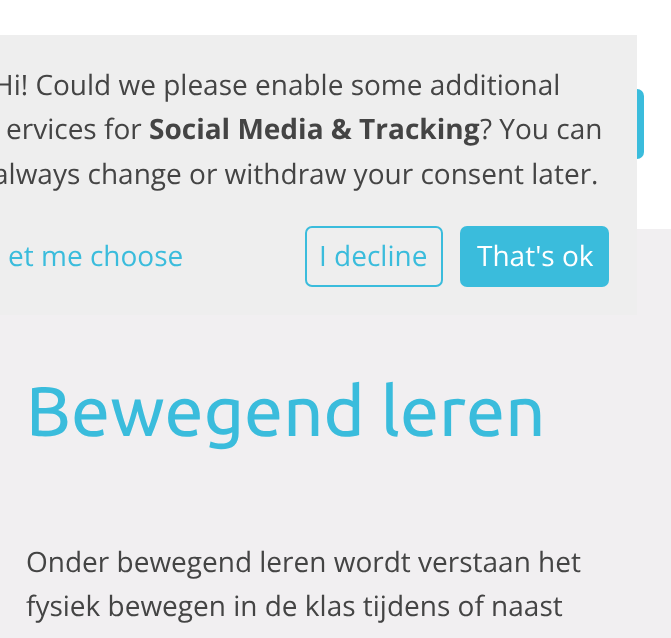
<svg xmlns="http://www.w3.org/2000/svg" width="671" height="638">
<rect width="100%" height="100%" fill="#f1eff1"/>
<rect width="671" height="229" fill="#fff"/>
<rect x="546" y="89" width="98" height="70" rx="7" fill="#3abcdc"/>
<rect y="35" width="637" height="280" fill="#eee"/>
<text x="-7" y="95" style="font-family:Open Sans;font-size:28px;fill:#444">Hi! Could we please enable some additional</text>
<text x="6" y="139" style="font-family:Open Sans;font-size:28px;fill:#444">ervices for</text>
<text x="149" y="139" style="font-family:Open Sans;font-size:28px;font-weight:bold;fill:#444">Social Media &amp; Tracking</text>
<text x="480" y="139" style="font-family:Open Sans;font-size:28px;fill:#444">? You can</text>
<text x="-7" y="184" style="font-family:Open Sans;font-size:28px;fill:#444">always change or withdraw your consent later.</text>
<text x="8" y="266" style="font-family:Open Sans;font-size:28px;fill:#3abcdc">et me choose</text>
<rect x="306" y="227" width="136" height="59" rx="6" fill="none" stroke="#3abcdc" stroke-width="2"/>
<text x="319" y="266" style="font-family:Open Sans;font-size:28px;fill:#3abcdc">I decline</text>
<rect x="460" y="226" width="149" height="61" rx="7" fill="#3abcdc"/>
<text x="477" y="266" style="font-family:Open Sans;font-size:28px;fill:#fff">That's ok</text>
<text x="26" y="436" style="font-family:Ubuntu;font-size:70px;fill:#3abcdc">Bewegend leren</text>
<text x="26" y="572" style="font-family:Open Sans;font-size:28px;fill:#444">Onder bewegend leren wordt verstaan het</text>
<text x="26" y="616" style="font-family:Open Sans;font-size:28px;fill:#444">fysiek bewegen in de klas tijdens of naast</text>
</svg>
